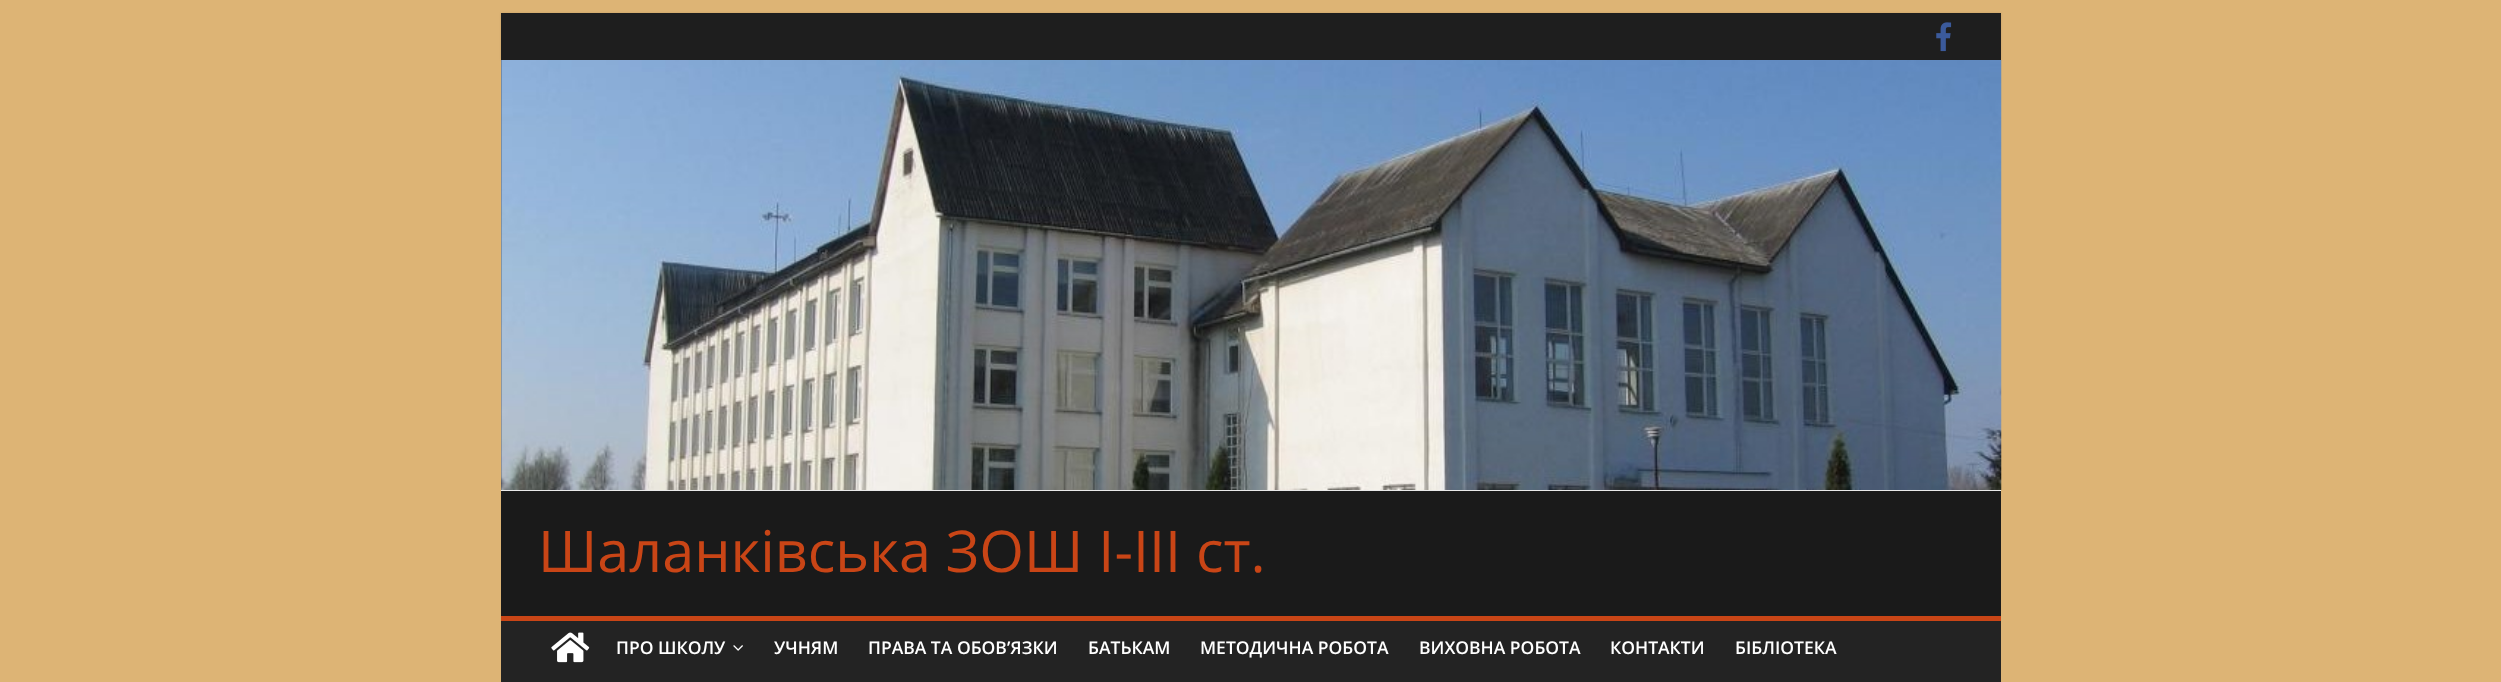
<svg xmlns="http://www.w3.org/2000/svg" width="2501" height="682">
<rect width="100%" height="100%" fill="#ddb475"/>
<rect x="501" y="60" width="1500" height="556" fill="#1a1a1a"/>
<rect x="501" y="13" width="1500" height="47" fill="#0000001a" filter="blur(1px)"/>
<rect x="501" y="13" width="1500" height="47" fill="#1e1e1e"/>
<image x="1936" y="22" width="16" height="30" href="media/1.png"/>
<image x="501" y="60" width="1501" height="430" href="media/2.png"/>
<rect x="501" y="490" width="1500" height="1" fill="#eaeaea"/>
<text x="538" y="572" style="font-family:Open Sans;font-size:57.5px;fill:#c94516">Шаланківська ЗОШ І-ІІІ ст.</text>
<rect x="501" y="621" width="1500" height="61" fill="#232323"/>
<rect x="501" y="616" width="1500" height="5" fill="#c94516"/>
<image x="551" y="632" width="39" height="31" href="media/3.png"/>
<text x="616" y="654" style="font-family:Open Sans;font-size:17.5px;font-weight:600;fill:#fff">ПРО ШКОЛУ</text>
<image x="733" y="645" width="10" height="6" href="media/4.png"/>
<text x="774" y="654" style="font-family:Open Sans;font-size:17.5px;font-weight:600;fill:#fff">УЧНЯМ</text>
<text x="868" y="654" style="font-family:Open Sans;font-size:17.5px;font-weight:600;fill:#fff">ПРАВА ТА ОБОВ’ЯЗКИ</text>
<text x="1088" y="654" style="font-family:Open Sans;font-size:17.5px;font-weight:600;fill:#fff">БАТЬКАМ</text>
<text x="1200" y="654" style="font-family:Open Sans;font-size:17.5px;font-weight:600;fill:#fff">МЕТОДИЧНА РОБОТА</text>
<text x="1419" y="654" style="font-family:Open Sans;font-size:17.5px;font-weight:600;fill:#fff">ВИХОВНА РОБОТА</text>
<text x="1610" y="654" style="font-family:Open Sans;font-size:17.5px;font-weight:600;fill:#fff">КОНТАКТИ</text>
<text x="1735" y="654" style="font-family:Open Sans;font-size:17.5px;font-weight:600;fill:#fff">БІБЛІОТЕКА</text>
</svg>
